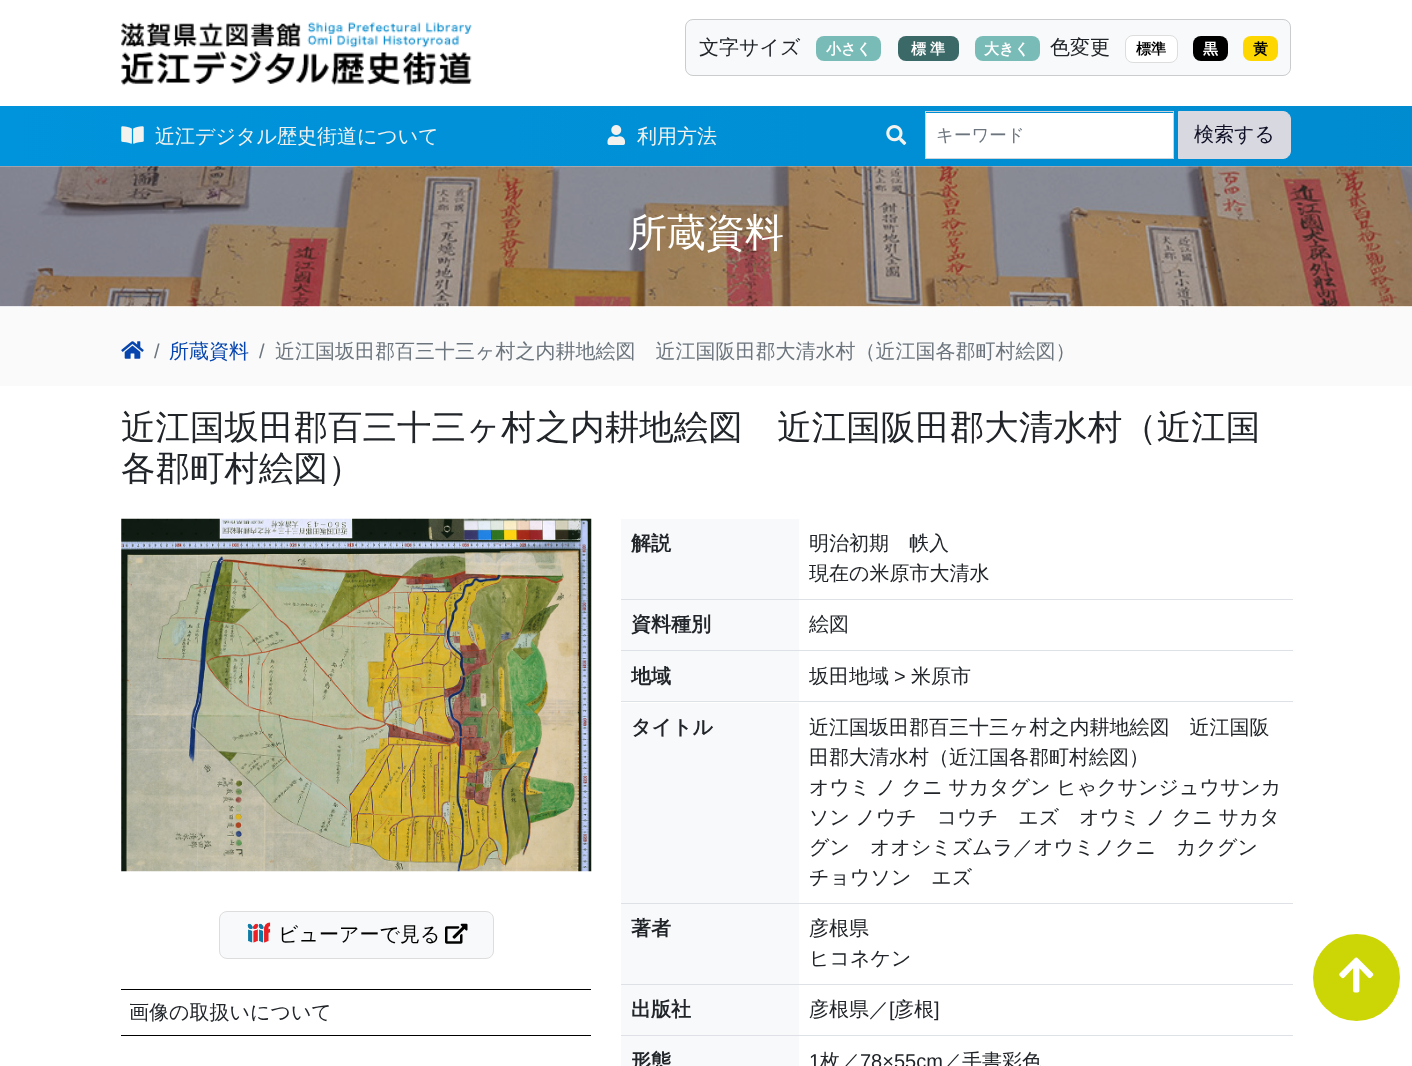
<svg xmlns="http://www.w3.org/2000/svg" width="1412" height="1066">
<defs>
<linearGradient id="g1" gradientUnits="userSpaceOnUse" x1="-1.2" y1="276" x2="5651" y2="177"><stop offset="0" stop-color="#0094dc"/><stop offset="1" stop-color="#0072ab"/></linearGradient>
</defs>
<rect width="100%" height="100%" fill="#fff"/>
<image x="121" y="22" width="351" height="64" href="media/1.png"/>
<rect x="685" y="19" width="606" height="57" rx="8" fill="#f8f9fa"/>
<rect x="685.5" y="19.5" width="605" height="56" rx="7.5" fill="none" stroke="#0000002e"/>
<text x="699" y="54" style="font-family:WenQuanYi Zen Hei;font-size:20px;font-weight:500;fill:#212529">文字サイズ</text>
<rect x="816" y="36" width="65" height="25" rx="8" fill="#79bbb7"/>
<text x="826" y="54" style="font-family:WenQuanYi Zen Hei;font-size:15px;font-weight:bold;fill:#fff">小さく</text>
<rect x="898" y="36" width="61" height="25" rx="8" fill="#3b6967"/>
<text x="911" y="54" style="font-family:WenQuanYi Zen Hei;font-size:15px;font-weight:bold;fill:#fff">標</text>
<text x="930" y="54" style="font-family:WenQuanYi Zen Hei;font-size:15px;font-weight:bold;fill:#fff">準</text>
<rect x="975" y="36" width="65" height="25" rx="8" fill="#79bbb7"/>
<text x="984" y="54" style="font-family:WenQuanYi Zen Hei;font-size:15px;font-weight:bold;fill:#fff">大きく</text>
<text x="1050" y="54" style="font-family:WenQuanYi Zen Hei;font-size:20px;font-weight:500;fill:#212529">色変更</text>
<rect x="1125.5" y="35.5" width="52" height="27" rx="7.5" fill="#fff" stroke="#ddd"/>
<text x="1136" y="54" style="font-family:WenQuanYi Zen Hei;font-size:15px;font-weight:bold;fill:#000">標準</text>
<rect x="1193" y="36" width="35" height="25" rx="8" fill="#000"/>
<text x="1203" y="54" style="font-family:WenQuanYi Zen Hei;font-size:15px;font-weight:bold;fill:#fff">黒</text>
<rect x="1243" y="36" width="35" height="25" rx="8" fill="#fed700"/>
<text x="1253" y="54" style="font-family:WenQuanYi Zen Hei;font-size:15px;font-weight:bold;fill:#000">黄</text>
<rect y="106" width="1412" height="60" fill="url(#g1)"/>
<image x="121" y="126" width="23" height="18" href="media/2.png"/>
<text x="155" y="143" style="font-family:WenQuanYi Zen Hei;font-size:20px;font-weight:500;fill:#f3f2ef">近江デジタル歴史街道について</text>
<image x="607" y="125" width="18" height="20" href="media/3.png"/>
<text x="637" y="143" style="font-family:WenQuanYi Zen Hei;font-size:20px;font-weight:500;fill:#f3f2ef">利用方法</text>
<image x="886" y="125" width="21" height="20" href="media/4.png"/>
<rect x="926" y="113" width="247" height="45" fill="#fff"/>
<rect x="925.5" y="111.5" width="248" height="47" fill="none" stroke="#ced4da"/>
<text x="936" y="141" style="font-family:WenQuanYi Zen Hei;font-size:17.5px;font-weight:500;fill:#6c757d">キーワード</text>
<path d="M1178.5 111.5h104.5c4 0 7.5 3.5 7.5 7.5v32c0 4-3.5 7.5-7.5 7.5h-104.5z" fill="#d8d8e0" stroke="#d8d8e0"/>
<text x="1194" y="141" style="font-family:WenQuanYi Zen Hei;font-size:20px;font-weight:500;fill:#0e0f25">検索する</text>
<rect y="306" width="1412" height="80" fill="#fafafa"/>
<image x="0" y="166" width="1412" height="141" href="media/5.png"/>
<text x="628" y="246" style="font-family:WenQuanYi Zen Hei;font-size:39px;font-weight:500;fill:#fff">所蔵資料</text>
<image x="121" y="341" width="23" height="18" href="media/6.png"/>
<text x="154" y="358" style="font-family:Liberation Sans;font-size:20px;fill:#6c757d">/</text>
<text x="169" y="358" style="font-family:WenQuanYi Zen Hei;font-size:20px;font-weight:500;fill:#0645ad">所蔵資料</text>
<text x="259" y="358" style="font-family:Liberation Sans;font-size:20px;fill:#6c757d">/</text>
<text x="275" y="358" style="font-family:WenQuanYi Zen Hei;font-size:20px;font-weight:500;fill:#6c757d">近江国坂田郡百三十三ヶ村之内耕地絵図　近江国阪田郡大清水村（近江国各郡町村絵図）</text>
<text x="121" y="439" style="font-family:WenQuanYi Zen Hei;font-size:34.5px;font-weight:500;fill:#212529">近江国坂田郡百三十三ヶ村之内耕地絵図　近江国阪田郡大清水村（近江国</text>
<text x="121" y="480" style="font-family:WenQuanYi Zen Hei;font-size:34.5px;font-weight:500;fill:#212529">各郡町村絵図）</text>
<image x="121" y="518" width="471" height="354" href="media/7.png"/>
<rect x="219.5" y="911.5" width="274" height="47" rx="7.5" fill="#f8f9fa" stroke="#ddd"/>
<image x="247" y="922" width="24" height="21" href="media/8.png"/>
<text x="278" y="941" style="font-family:WenQuanYi Zen Hei;font-size:20px;font-weight:500;fill:#000">ビューアーで見る</text>
<image x="445" y="923" width="23" height="21" href="media/9.png"/>
<rect x="121" y="989" width="470" height="1" fill="#000"/>
<rect x="121" y="1035" width="470" height="1" fill="#000"/>
<text x="129" y="1019" style="font-family:WenQuanYi Zen Hei;font-size:20px;font-weight:500;fill:#212529">画像の取扱いについて</text>
<rect x="621" y="519" width="178" height="80" fill="#f8f9fa"/>
<text x="631" y="550" style="font-family:WenQuanYi Zen Hei;font-size:20px;font-weight:bold;fill:#212529">解説</text>
<rect x="621" y="599" width="672" height="1" fill="#dee2e6"/>
<text x="809" y="550" style="font-family:WenQuanYi Zen Hei;font-size:20px;font-weight:500;fill:#212529">明治初期　帙入</text>
<text x="809" y="580" style="font-family:WenQuanYi Zen Hei;font-size:20px;font-weight:500;fill:#212529">現在の米原市大清水</text>
<rect x="621" y="600" width="178" height="50" fill="#f8f9fa"/>
<text x="631" y="631" style="font-family:WenQuanYi Zen Hei;font-size:20px;font-weight:bold;fill:#212529">資料種別</text>
<rect x="621" y="650" width="672" height="1" fill="#dee2e6"/>
<text x="809" y="631" style="font-family:WenQuanYi Zen Hei;font-size:20px;font-weight:500;fill:#212529">絵図</text>
<rect x="621" y="651" width="178" height="50" fill="#f8f9fa"/>
<text x="631" y="683" style="font-family:WenQuanYi Zen Hei;font-size:20px;font-weight:bold;fill:#212529">地域</text>
<rect x="621" y="701" width="672" height="1" fill="#dee2e6"/>
<text x="809" y="683" style="font-family:WenQuanYi Zen Hei;font-size:20px;font-weight:500;fill:#212529">坂田地域</text>
<text x="894" y="683" style="font-family:Liberation Sans;font-size:20px;fill:#212529">&gt;</text>
<text x="911" y="683" style="font-family:WenQuanYi Zen Hei;font-size:20px;font-weight:500;fill:#212529">米原市</text>
<rect x="621" y="703" width="178" height="200" fill="#f8f9fa"/>
<text x="631" y="734" style="font-family:WenQuanYi Zen Hei;font-size:20px;font-weight:bold;fill:#212529">タイトル</text>
<rect x="621" y="903" width="672" height="1" fill="#dee2e6"/>
<text x="809" y="734" style="font-family:WenQuanYi Zen Hei;font-size:20px;font-weight:500;fill:#212529">近江国坂田郡百三十三ヶ村之内耕地絵図　近江国阪</text>
<text x="809" y="764" style="font-family:WenQuanYi Zen Hei;font-size:20px;font-weight:500;fill:#212529">田郡大清水村（近江国各郡町村絵図）</text>
<text x="809" y="794" word-spacing="-0.5" style="font-family:WenQuanYi Zen Hei;font-size:20px;font-weight:500;fill:#212529">オウミ ノ クニ サカタグン ヒゃクサンジュウサンカ</text>
<text x="809" y="824" word-spacing="-0.5" style="font-family:WenQuanYi Zen Hei;font-size:20px;font-weight:500;fill:#212529">ソン ノウチ　コウチ　エズ　オウミ ノ クニ サカタ</text>
<text x="809" y="854" style="font-family:WenQuanYi Zen Hei;font-size:20px;font-weight:500;fill:#212529">グン　オオシミズムラ／オウミノクニ　カクグン</text>
<text x="809" y="884" style="font-family:WenQuanYi Zen Hei;font-size:20px;font-weight:500;fill:#212529">チョウソン　エズ</text>
<rect x="621" y="904" width="178" height="80" fill="#f8f9fa"/>
<text x="631" y="935" style="font-family:WenQuanYi Zen Hei;font-size:20px;font-weight:bold;fill:#212529">著者</text>
<rect x="621" y="984" width="672" height="1" fill="#dee2e6"/>
<text x="809" y="935" style="font-family:WenQuanYi Zen Hei;font-size:20px;font-weight:500;fill:#212529">彦根県</text>
<text x="809" y="965" style="font-family:WenQuanYi Zen Hei;font-size:20px;font-weight:500;fill:#212529">ヒコネケン</text>
<rect x="621" y="985" width="178" height="50" fill="#f8f9fa"/>
<text x="631" y="1016" style="font-family:WenQuanYi Zen Hei;font-size:20px;font-weight:bold;fill:#212529">出版社</text>
<rect x="621" y="1035" width="672" height="1" fill="#dee2e6"/>
<text x="809" y="1016" style="font-family:WenQuanYi Zen Hei;font-size:20px;font-weight:500;fill:#212529">彦根県／</text>
<text x="889" y="1016" style="font-family:Liberation Sans;font-size:20px;fill:#212529">[</text>
<text x="894" y="1016" style="font-family:WenQuanYi Zen Hei;font-size:20px;font-weight:500;fill:#212529">彦根</text>
<text x="934" y="1016" style="font-family:Liberation Sans;font-size:20px;fill:#212529">]</text>
<rect x="621" y="1036" width="178" height="30" fill="#f8f9fa"/>
<text x="631" y="1068" style="font-family:WenQuanYi Zen Hei;font-size:20px;font-weight:bold;fill:#212529">形態</text>
<text x="809" y="1068" style="font-family:Liberation Sans;font-size:20px;fill:#212529">1</text>
<text x="820" y="1068" style="font-family:WenQuanYi Zen Hei;font-size:20px;font-weight:500;fill:#212529">枚／</text>
<text x="860" y="1068" style="font-family:Liberation Sans;font-size:20px;fill:#212529">78×55cm</text>
<text x="942" y="1068" style="font-family:WenQuanYi Zen Hei;font-size:20px;font-weight:500;fill:#212529">／手書彩色</text>
<circle cx="1356.5" cy="977.5" r="43.5" fill="#ccd607"/>
<image x="1339" y="957" width="35" height="36" href="media/10.png"/>
</svg>
